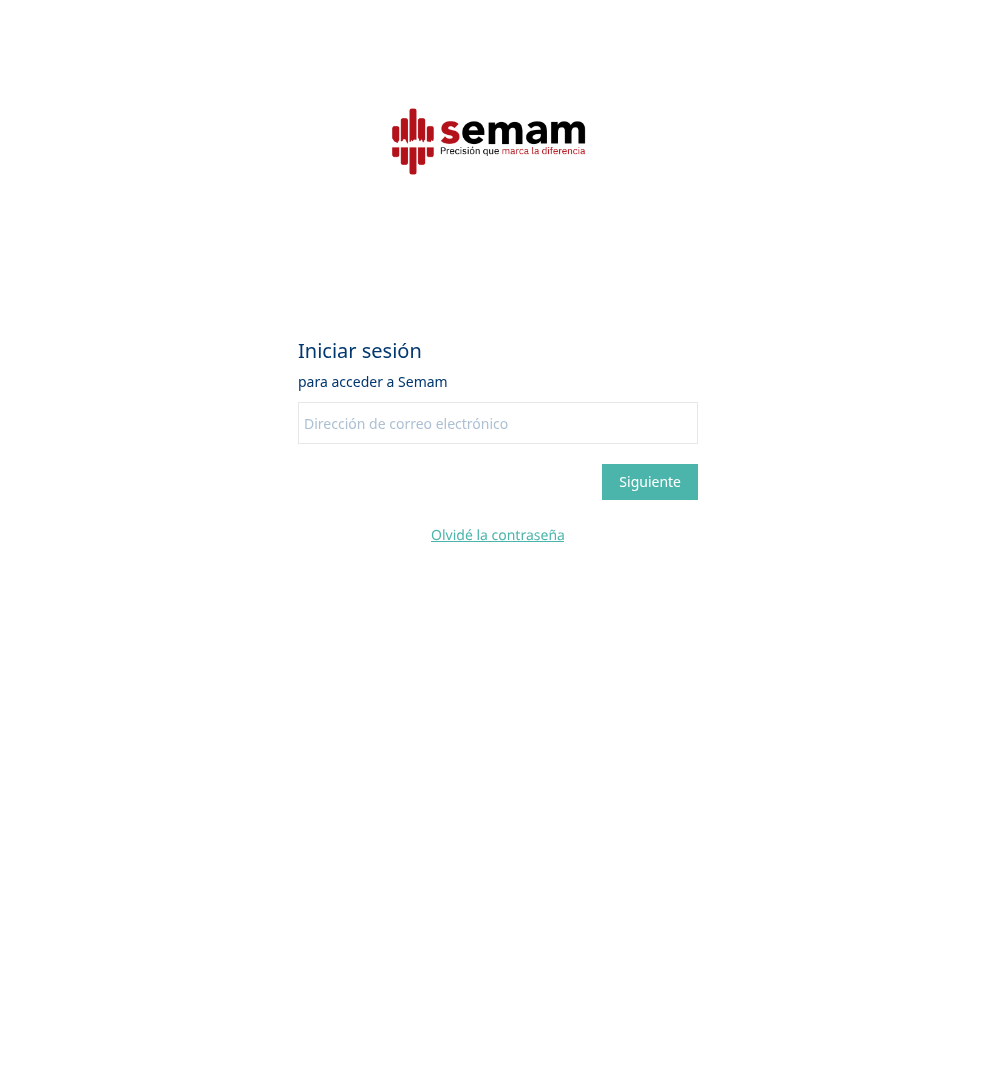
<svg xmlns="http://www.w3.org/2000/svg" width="995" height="1079">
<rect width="100%" height="100%" fill="#fff"/>
<image x="392" y="108" width="194" height="67" href="media/1.png"/>
<image x="298" y="343" width="400" height="157" href="media/2.png"/>
<text x="431" y="540" style="font-family:Noto Sans;font-size:14px;fill:#4cb5ab">Olvidé la contraseña</text>
<rect x="431" y="541" width="133" height="1" fill="#4cb5ab"/>
</svg>
